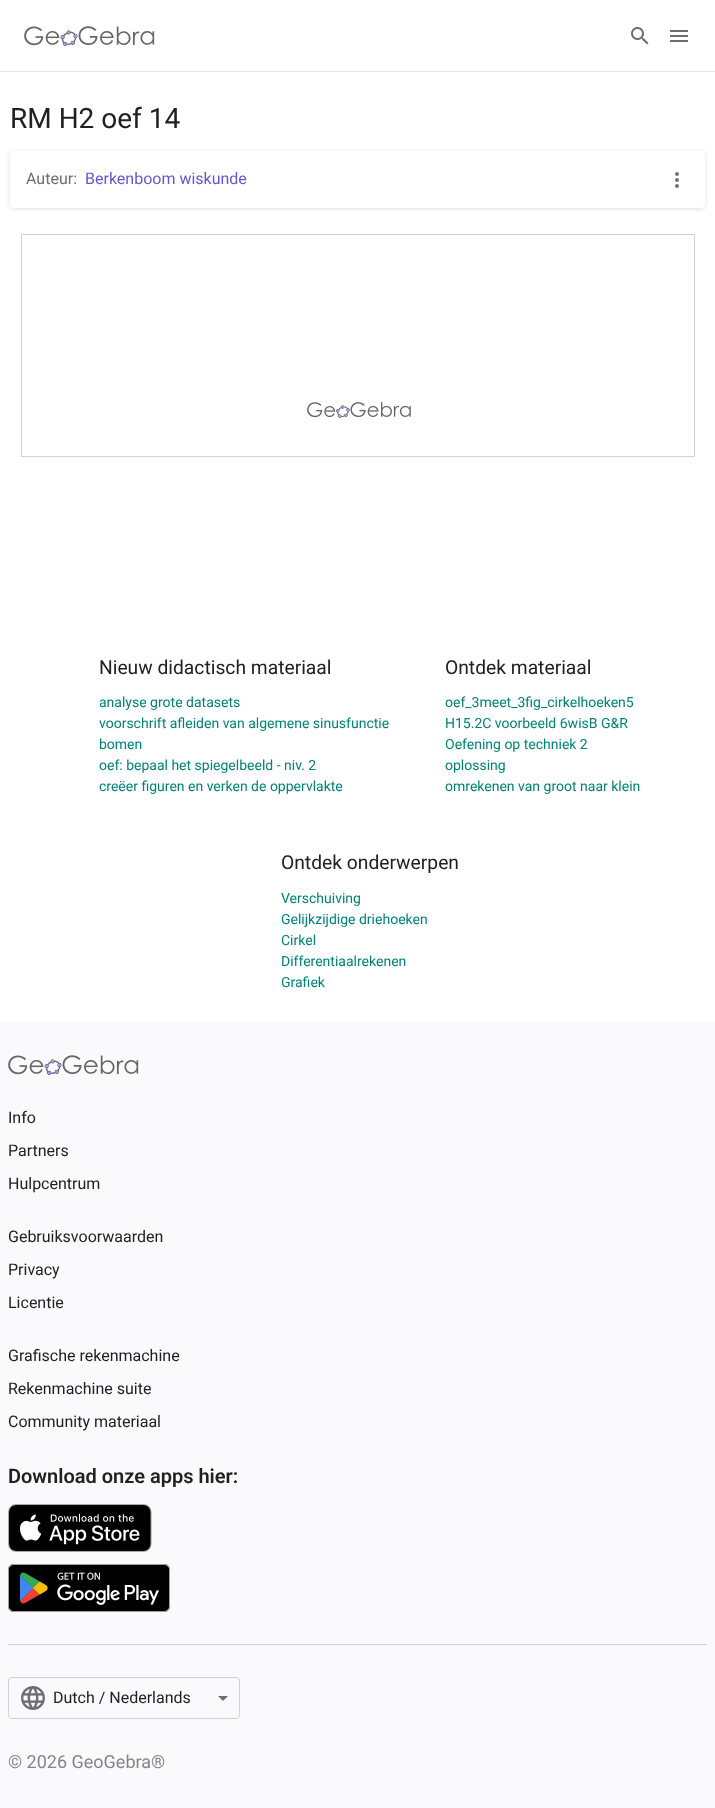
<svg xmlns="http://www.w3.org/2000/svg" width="715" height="1808">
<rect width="100%" height="100%" fill="#fff"/>
<rect y="71" width="715" height="1" fill="#e6e6eb"/>
<image x="24" y="26" width="131" height="20" href="media/1.png"/>
<image x="631" y="27" width="18" height="18" href="media/2.png"/>
<image x="670" y="30" width="18" height="12" href="media/3.png"/>
<text x="10" y="128" style="font-family:Roboto;font-size:28px;fill:#212121">RM H2 oef 14</text>
<rect x="10" y="152" width="695" height="57" rx="4" fill="#1c1c1f24" filter="blur(2px)"/>
<rect x="10" y="151" width="695" height="57" rx="4" fill="#fff"/>
<text x="26" y="184" style="font-family:Roboto;font-size:16px;fill:#6e6d73">Auteur:</text>
<text x="85" y="184" style="font-family:Roboto;font-size:16px;fill:#6557d2">Berkenboom wiskunde</text>
<image x="675" y="172" width="4" height="16" href="media/4.png"/>
<image x="307" y="402" width="104" height="16" href="media/5.png"/>
<rect x="21.5" y="234.5" width="673" height="222" fill="none" stroke="#d3d3d3"/>
<text x="99" y="674" style="font-family:Roboto;font-size:19.25px;fill:#212121">Nieuw didactisch materiaal</text>
<text x="99" y="707" style="font-family:Roboto;font-size:14px;fill:#008475">analyse grote datasets</text>
<text x="99" y="728" style="font-family:Roboto;font-size:14px;fill:#008475">voorschrift afleiden van algemene sinusfunctie</text>
<text x="99" y="749" style="font-family:Roboto;font-size:14px;fill:#008475">bomen</text>
<text x="99" y="770" style="font-family:Roboto;font-size:14px;fill:#008475">oef: bepaal het spiegelbeeld - niv. 2</text>
<text x="99" y="791" style="font-family:Roboto;font-size:14px;fill:#008475">creëer figuren en verken de oppervlakte</text>
<text x="445" y="674" style="font-family:Roboto;font-size:19.25px;fill:#212121">Ontdek materiaal</text>
<text x="445" y="707" style="font-family:Roboto;font-size:14px;fill:#008475">oef_3meet_3fig_cirkelhoeken5</text>
<text x="445" y="728" style="font-family:Roboto;font-size:14px;fill:#008475">H15.2C voorbeeld 6wisB G&amp;R</text>
<text x="445" y="749" style="font-family:Roboto;font-size:14px;fill:#008475">Oefening op techniek 2</text>
<text x="445" y="770" style="font-family:Roboto;font-size:14px;fill:#008475">oplossing</text>
<text x="445" y="791" style="font-family:Roboto;font-size:14px;fill:#008475">omrekenen van groot naar klein</text>
<text x="281" y="869" style="font-family:Roboto;font-size:19.25px;fill:#212121">Ontdek onderwerpen</text>
<text x="281" y="903" style="font-family:Roboto;font-size:14px;fill:#008475">Verschuiving</text>
<text x="281" y="924" style="font-family:Roboto;font-size:14px;fill:#008475">Gelijkzijdige driehoeken</text>
<text x="281" y="945" style="font-family:Roboto;font-size:14px;fill:#008475">Cirkel</text>
<text x="281" y="966" style="font-family:Roboto;font-size:14px;fill:#008475">Differentiaalrekenen</text>
<text x="281" y="987" style="font-family:Roboto;font-size:14px;fill:#008475">Grafiek</text>
<rect y="1023" width="715" height="785" fill="#fafafc"/>
<image x="8" y="1055" width="131" height="20" href="media/6.png"/>
<text x="8" y="1123" style="font-family:Roboto;font-size:16px;fill:#212121">Info</text>
<text x="8" y="1156" style="font-family:Roboto;font-size:16px;fill:#212121">Partners</text>
<text x="8" y="1189" style="font-family:Roboto;font-size:16px;fill:#212121">Hulpcentrum</text>
<text x="8" y="1242" style="font-family:Roboto;font-size:16px;fill:#212121">Gebruiksvoorwaarden</text>
<text x="8" y="1275" style="font-family:Roboto;font-size:16px;fill:#212121">Privacy</text>
<text x="8" y="1308" style="font-family:Roboto;font-size:16px;fill:#212121">Licentie</text>
<text x="8" y="1361" style="font-family:Roboto;font-size:16px;fill:#212121">Grafische rekenmachine</text>
<text x="8" y="1394" style="font-family:Roboto;font-size:16px;fill:#212121">Rekenmachine suite</text>
<text x="8" y="1427" style="font-family:Roboto;font-size:16px;fill:#212121">Community materiaal</text>
<text x="8" y="1483" style="font-family:Roboto;font-size:20px;font-weight:600;fill:#212121">Download onze apps hier:</text>
<image x="8" y="1504" width="144" height="48" href="media/7.png"/>
<image x="8" y="1564" width="162" height="48" href="media/8.png"/>
<rect x="8" y="1644" width="699" height="1" fill="#d1d0d6"/>
<rect x="8.5" y="1677.5" width="231" height="41" rx="3.5" fill="none" stroke="#d1d0d6"/>
<image x="21" y="1686" width="24" height="24" href="media/9.png"/>
<text x="53" y="1703" style="font-family:Roboto;font-size:16px;fill:#212121">Dutch / Nederlands</text>
<path d="M218 1696l5 5l5-5z" fill="#6e6d73"/>
<text x="8" y="1768" style="font-family:Roboto;font-size:18px;fill:#85848a">© 2026 GeoGebra®</text>
</svg>
